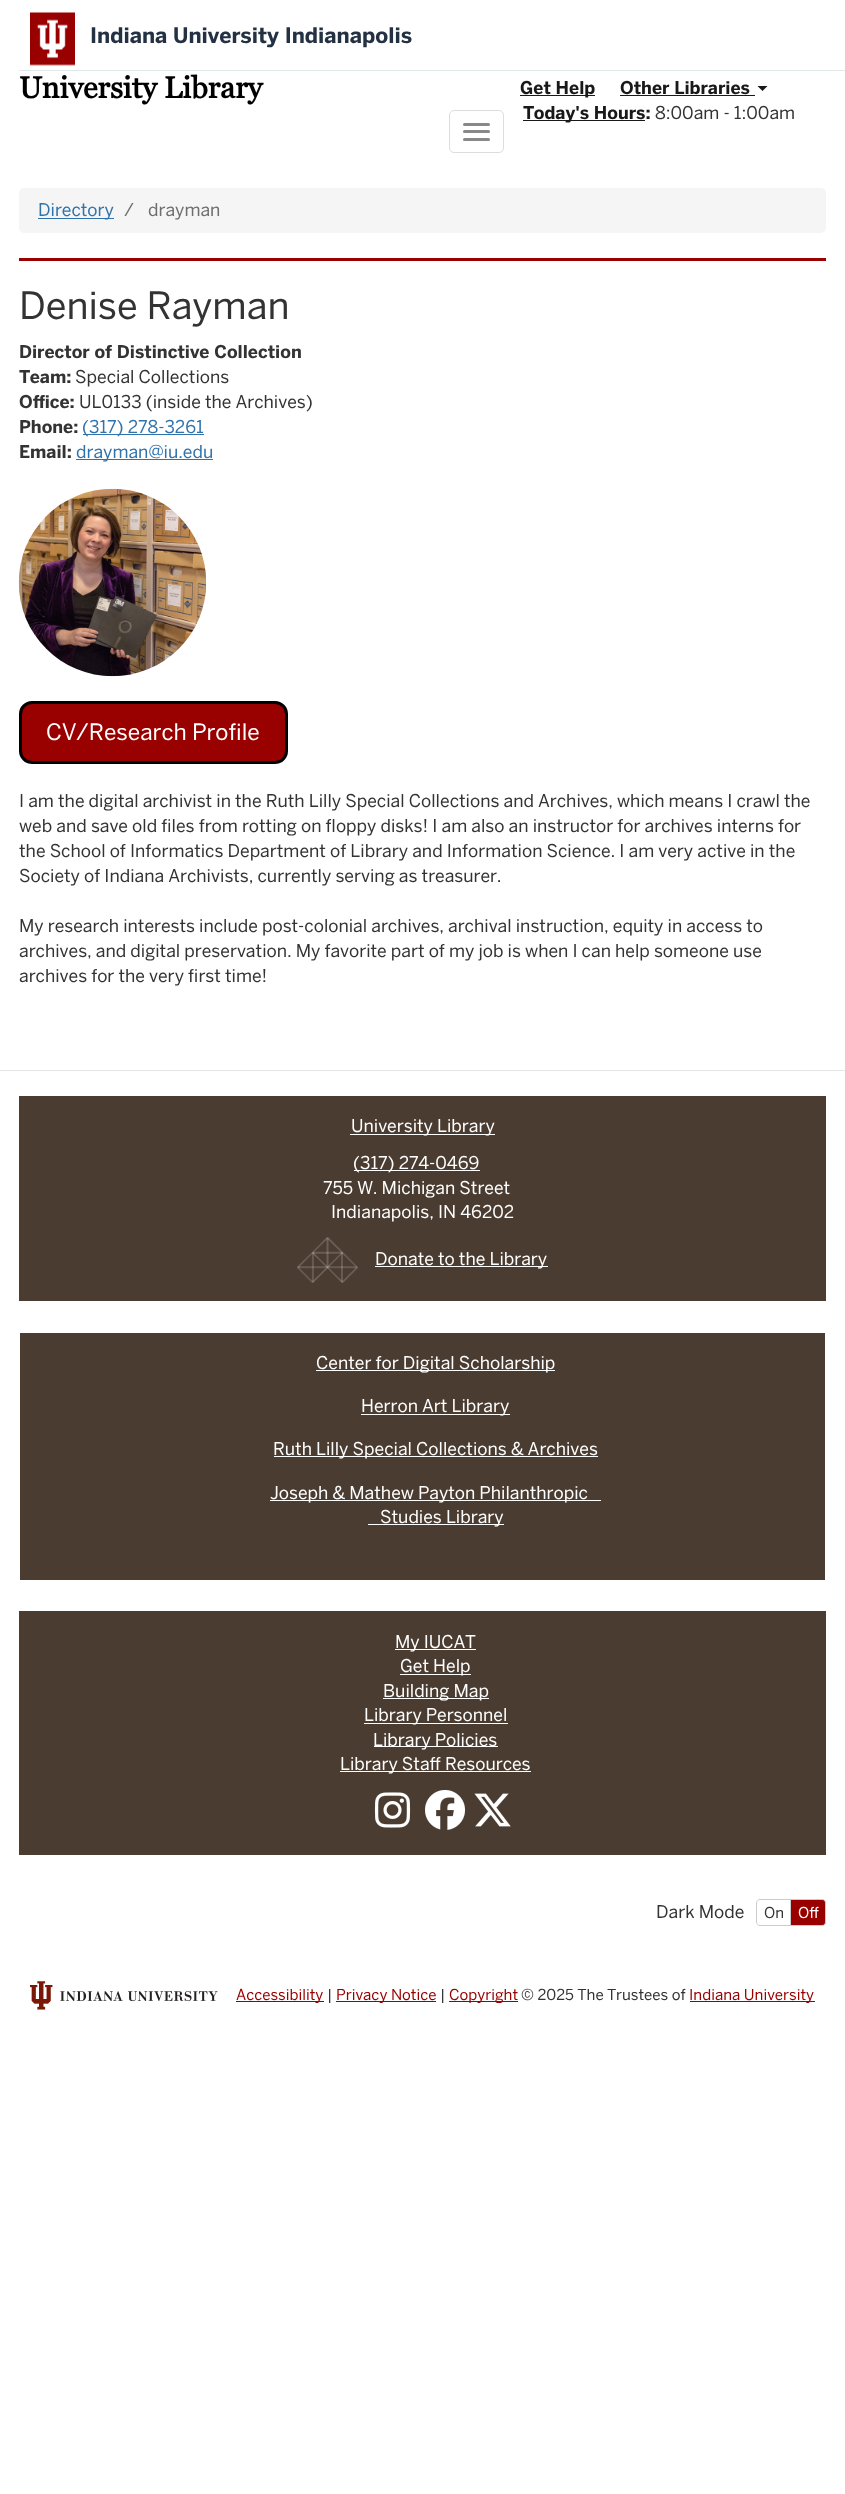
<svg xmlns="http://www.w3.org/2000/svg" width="845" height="2494">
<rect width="100%" height="100%" fill="#fff"/>
<rect x="19" y="70" width="826" height="1" fill="#e2e7e9"/>
<image x="30" y="12" width="45" height="54" href="media/1.png"/>
<text x="90" y="43" style="font-family:'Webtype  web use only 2';font-size:21.25px;font-weight:bold;fill:#243142">Indiana University Indianapolis</text>
<text x="19" y="98" style="font-family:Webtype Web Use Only;font-size:30px;font-weight:bold;fill:#000">University Library</text>
<rect x="520" y="95" width="75" height="1" fill="#191919"/>
<text x="520" y="94" style="font-family:'Webtype  web use only 2';font-size:17.5px;font-weight:bold;fill:#191919">Get Help</text>
<text x="620" y="94" style="font-family:'Webtype  web use only 2';font-size:17.5px;font-weight:bold;fill:#191919">Other Libraries</text>
<rect x="620" y="95" width="135" height="1" fill="#191919"/>
<path d="M757.5 86h10l-5 5z" fill="#191919"/>
<rect x="523" y="120" width="122" height="1" fill="#191919"/>
<text x="523" y="119" style="font-family:'Webtype  web use only 2';font-size:17.5px;font-weight:bold;fill:#191919">Today's Hours:</text>
<text x="655" y="119" style="font-family:'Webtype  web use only';font-size:17.5px;fill:#333">8:00am - 1:00am</text>
<rect x="449.5" y="110.5" width="54" height="42" rx="4.5" fill="none" stroke="#ddd"/>
<rect x="463" y="123" width="27" height="3" rx="1.5" fill="#888"/>
<rect x="463" y="130" width="27" height="3" rx="1.5" fill="#888"/>
<rect x="463" y="138" width="27" height="3" rx="1.5" fill="#888"/>
<rect x="19" y="188" width="807" height="45" rx="5" fill="#f5f5f5"/>
<rect x="38" y="218" width="76" height="1" fill="#3072ab"/>
<text x="38" y="216" style="font-family:'Webtype  web use only';font-size:17.5px;fill:#3072ab">Directory</text>
<text x="124" y="216" style="font-family:'Webtype  web use only';font-size:17.5px;fill:#6e6e6e">/</text>
<text x="148" y="216" style="font-family:'Webtype  web use only';font-size:17.5px;fill:#6e6e6e">drayman</text>
<rect x="19" y="258" width="807" height="3" fill="#900"/>
<text x="19" y="319" style="font-family:'Webtype  web use only';font-size:37.5px;fill:#333">Denise Rayman</text>
<text x="19" y="358" style="font-family:'Webtype  web use only 2';font-size:17.5px;font-weight:bold;fill:#333">Director of Distinctive Collection</text>
<text x="19" y="383" style="font-family:'Webtype  web use only 2';font-size:17.5px;font-weight:bold;fill:#333">Team:</text>
<text x="75" y="383" style="font-family:'Webtype  web use only';font-size:17.5px;fill:#333">Special Collections</text>
<text x="19" y="408" style="font-family:'Webtype  web use only 2';font-size:17.5px;font-weight:bold;fill:#333">Office:</text>
<text x="79" y="408" style="font-family:'Webtype  web use only';font-size:17.5px;fill:#333">UL0133 (inside the Archives)</text>
<text x="19" y="433" style="font-family:'Webtype  web use only 2';font-size:17.5px;font-weight:bold;fill:#333">Phone:</text>
<rect x="83" y="434" width="121" height="1" fill="#3072ab"/>
<text x="82" y="433" style="font-family:'Webtype  web use only';font-size:17.5px;fill:#3072ab">(317) 278-3261</text>
<text x="19" y="458" style="font-family:'Webtype  web use only 2';font-size:17.5px;font-weight:bold;fill:#333">Email:</text>
<rect x="76" y="459" width="137" height="1" fill="#3072ab"/>
<text x="76" y="458" style="font-family:'Webtype  web use only';font-size:17.5px;fill:#3072ab">drayman@iu.edu</text>
<image x="18" y="488" width="189" height="189" href="media/2.png"/>
<rect x="20.5" y="702.5" width="266" height="60" rx="11.5" fill="#900" stroke="#000" stroke-width="3"/>
<text x="46" y="740" style="font-family:'Webtype  web use only';font-size:22.5px;fill:#fff">CV/Research Profile</text>
<text x="19" y="807" style="font-family:'Webtype  web use only';font-size:17.5px;fill:#333">I am the digital archivist in the Ruth Lilly Special Collections and Archives, which means I crawl the</text>
<text x="19" y="832" style="font-family:'Webtype  web use only';font-size:17.5px;fill:#333">web and save old files from rotting on floppy disks! I am also an instructor for archives interns for</text>
<text x="19" y="857" style="font-family:'Webtype  web use only';font-size:17.5px;fill:#333">the School of Informatics Department of Library and Information Science. I am very active in the</text>
<text x="19" y="882" style="font-family:'Webtype  web use only';font-size:17.5px;fill:#333">Society of Indiana Archivists, currently serving as treasurer.</text>
<text x="19" y="932" style="font-family:'Webtype  web use only';font-size:17.5px;fill:#333">My research interests include post-colonial archives, archival instruction, equity in access to</text>
<text x="19" y="957" style="font-family:'Webtype  web use only';font-size:17.5px;fill:#333">archives, and digital preservation. My favorite part of my job is when I can help someone use</text>
<text x="19" y="982" style="font-family:'Webtype  web use only';font-size:17.5px;fill:#333">archives for the very first time!</text>
<rect y="1070" width="845" height="1" fill="#e5e5e5"/>
<rect x="19" y="1096" width="807" height="205" fill="#4a3c31"/>
<rect x="350" y="1134" width="145" height="1" fill="#fff"/>
<text x="351" y="1132" style="font-family:'Webtype  web use only';font-size:17.5px;fill:#fff">University Library</text>
<rect x="354" y="1170" width="126" height="1" fill="#fff"/>
<text x="353" y="1169" style="font-family:'Webtype  web use only';font-size:17.5px;fill:#fff">(317) 274-0469</text>
<text x="323" y="1194" style="font-family:'Webtype  web use only';font-size:17.5px;fill:#fff">755 W. Michigan Street</text>
<text x="331" y="1218" style="font-family:'Webtype  web use only';font-size:17.5px;fill:#fff">Indianapolis, IN 46202</text>
<image x="297" y="1237" width="61" height="46" href="media/3.png"/>
<rect x="375" y="1266" width="173" height="1" fill="#fff"/>
<text x="375" y="1265" style="font-family:'Webtype  web use only';font-size:17.5px;fill:#fff">Donate to the Library</text>
<rect x="20" y="1333" width="805" height="247" fill="#4a3c31"/>
<rect x="316" y="1370" width="239" height="1" fill="#fff"/>
<text x="316" y="1369" style="font-family:'Webtype  web use only';font-size:17.5px;fill:#fff">Center for Digital Scholarship</text>
<rect x="361" y="1414" width="149" height="1" fill="#fff"/>
<text x="361" y="1412" style="font-family:'Webtype  web use only';font-size:17.5px;fill:#fff">Herron Art Library</text>
<rect x="274" y="1456" width="324" height="1" fill="#fff"/>
<text x="273" y="1455" style="font-family:'Webtype  web use only';font-size:17.5px;fill:#fff">Ruth Lilly Special Collections &amp; Archives</text>
<rect x="270" y="1500" width="331" height="1" fill="#fff"/>
<text x="270" y="1499" style="font-family:'Webtype  web use only';font-size:17.5px;fill:#fff">Joseph &amp; Mathew Payton Philanthropic</text>
<rect x="368" y="1524" width="136" height="1" fill="#fff"/>
<text x="380" y="1523" style="font-family:'Webtype  web use only';font-size:17.5px;fill:#fff">Studies Library</text>
<rect x="19" y="1611" width="807" height="244" fill="#4a3c31"/>
<rect x="395" y="1649" width="81" height="1" fill="#fff"/>
<text x="395" y="1648" style="font-family:'Webtype  web use only';font-size:17.5px;fill:#fff">My IUCAT</text>
<rect x="400" y="1674" width="71" height="1" fill="#fff"/>
<text x="400" y="1672" style="font-family:'Webtype  web use only';font-size:17.5px;fill:#fff">Get Help</text>
<rect x="383" y="1698" width="106" height="1" fill="#fff"/>
<text x="383" y="1697" style="font-family:'Webtype  web use only';font-size:17.5px;fill:#fff">Building Map</text>
<rect x="364" y="1723" width="144" height="1" fill="#fff"/>
<text x="364" y="1721" style="font-family:'Webtype  web use only';font-size:17.5px;fill:#fff">Library Personnel</text>
<rect x="374" y="1746" width="124" height="1" fill="#fff"/>
<text x="373" y="1746" style="font-family:'Webtype  web use only';font-size:17.5px;fill:#fff">Library Policies</text>
<rect x="340" y="1771" width="191" height="1" fill="#fff"/>
<text x="340" y="1770" style="font-family:'Webtype  web use only';font-size:17.5px;fill:#fff">Library Staff Resources</text>
<image x="374" y="1792" width="37" height="36" href="media/4.png"/>
<image x="425" y="1790" width="40" height="40" href="media/5.png"/>
<image x="474" y="1793" width="37" height="34" href="media/6.png"/>
<text x="656" y="1918" style="font-family:'Webtype  web use only';font-size:17.5px;fill:#333">Dark Mode</text>
<path d="M760 1899.5h30.5v26h-30.5c-2 0-3.5-1.5-3.5-3.5v-19c0-2 1.5-3.5 3.5-3.5z" fill="none" stroke="#ccc"/>
<text x="764" y="1918" style="font-family:'Webtype  web use only';font-size:15px;fill:#333">On</text>
<path d="M790.5 1899.5h31.5c2 0 3.5 1.5 3.5 3.5v19c0 2-1.5 3.5-3.5 3.5h-31.5z" fill="#900" stroke="#ccc"/>
<text x="798" y="1918" style="font-family:'Webtype  web use only';font-size:15px;fill:#fff">Off</text>
<image x="30" y="1981" width="188" height="29" href="media/7.png"/>
<rect x="236" y="2001" width="88" height="1" fill="#900"/>
<text x="236" y="2000" style="font-family:'Webtype  web use only';font-size:15px;fill:#900">Accessibility</text>
<text x="327" y="2000" style="font-family:'Webtype  web use only';font-size:15px;fill:#333">|</text>
<rect x="336" y="2001" width="100" height="1" fill="#900"/>
<text x="336" y="2000" style="font-family:'Webtype  web use only';font-size:15px;fill:#900">Privacy Notice</text>
<text x="440" y="2000" style="font-family:'Webtype  web use only';font-size:15px;fill:#333">|</text>
<rect x="449" y="2001" width="69" height="1" fill="#900"/>
<text x="449" y="2000" style="font-family:'Webtype  web use only';font-size:15px;fill:#900">Copyright</text>
<text x="521" y="2000" style="font-family:'Webtype  web use only';font-size:15px;fill:#333">© 2025 The Trustees of</text>
<rect x="690" y="2001" width="125" height="1" fill="#900"/>
<text x="689" y="2000" style="font-family:'Webtype  web use only';font-size:15px;fill:#900">Indiana University</text>
</svg>
